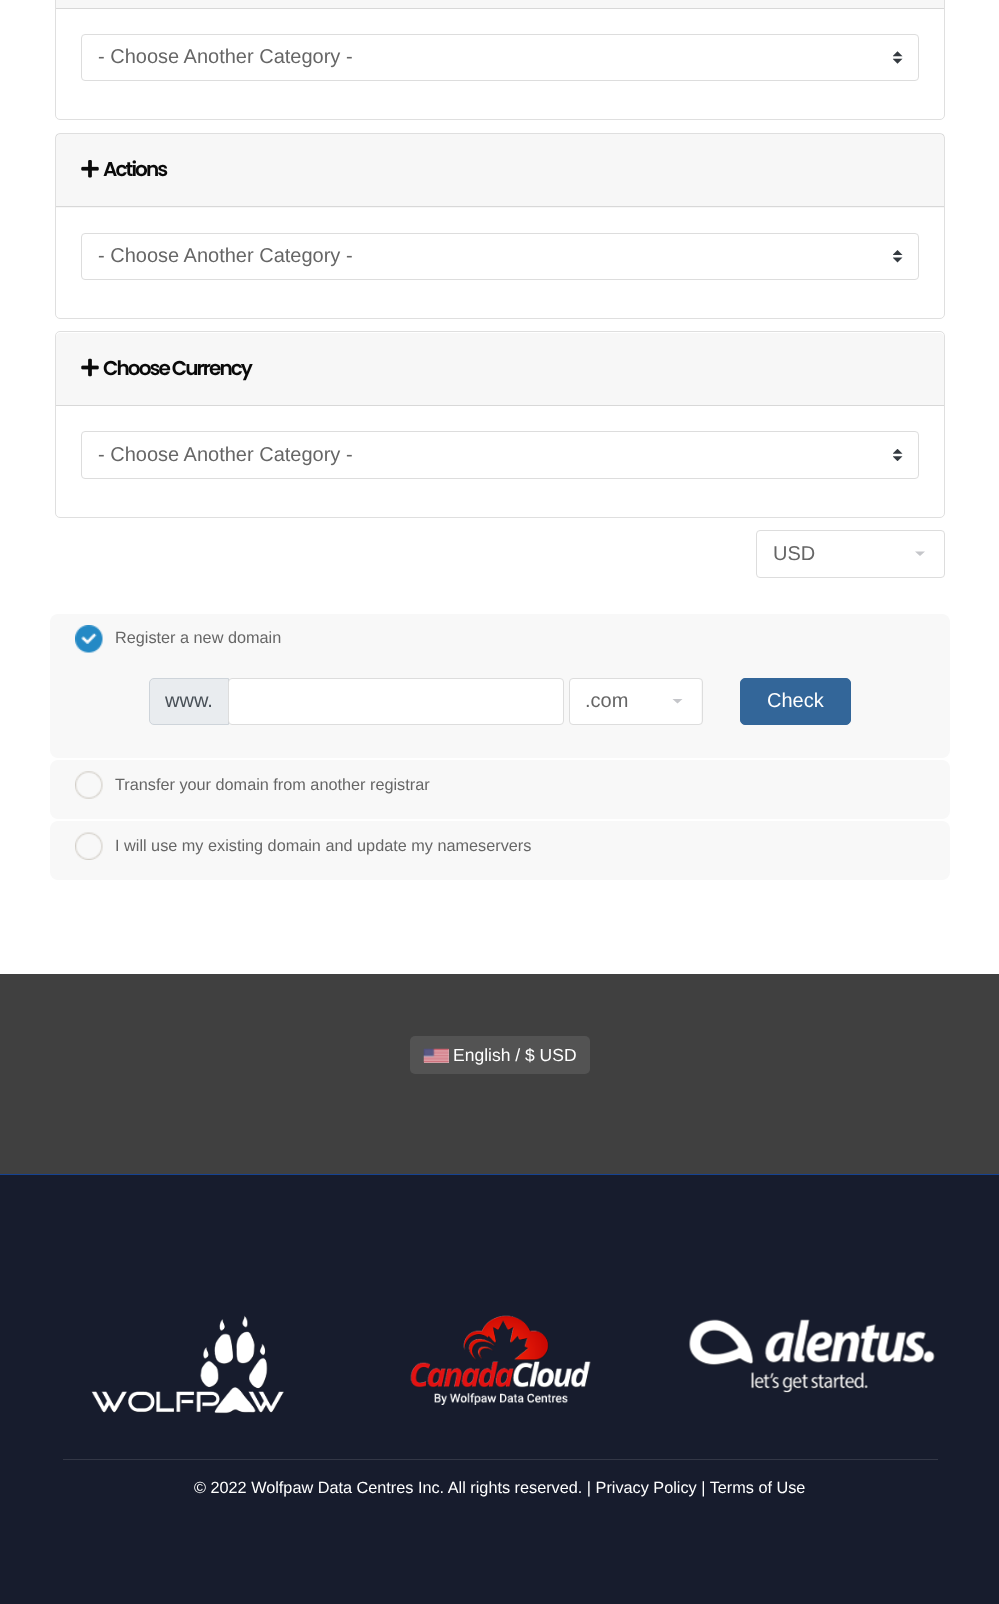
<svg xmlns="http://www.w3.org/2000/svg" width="999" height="1604">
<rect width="100%" height="100%" fill="#404040"/>
<rect width="999" height="974" fill="#fff"/>
<rect x="55.5" y="-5.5" width="889" height="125" rx="4.5" fill="none" stroke="#dfdfdf"/>
<rect x="56" width="888" height="8" fill="#f7f7f7"/>
<rect x="56" y="8" width="888" height="1" fill="#d8d8d8"/>
<image x="893" y="51" width="10" height="13" href="media/1.png"/>
<rect x="81.5" y="34.5" width="837" height="46" rx="3.5" fill="none" stroke="#ddd"/>
<text x="98" y="63" style="font-family:Liberation Sans;font-size:20px;fill:#666">- Choose Another Category -</text>
<rect x="55.5" y="133.5" width="889" height="185" rx="4.5" fill="none" stroke="#dfdfdf"/>
<rect x="56" y="134" width="888" height="74" fill="#00000008"/>
<rect x="56" y="206" width="888" height="1" fill="#d8d8d8"/>
<image x="81" y="160" width="18" height="18" href="media/2.png"/>
<text x="103" y="176" style="font-family:Poppins;font-size:20px;font-weight:600;letter-spacing:-1.9px;fill:#0a0a0a">Actions</text>
<image x="893" y="250" width="10" height="13" href="media/3.png"/>
<rect x="81.5" y="233.5" width="837" height="46" rx="3.5" fill="none" stroke="#ddd"/>
<text x="98" y="262" style="font-family:Liberation Sans;font-size:20px;fill:#666">- Choose Another Category -</text>
<rect x="55.5" y="331.5" width="889" height="186" rx="4.5" fill="none" stroke="#dfdfdf"/>
<path d="M60 333h880c2 0 4 2 4 4v69h-888v-69c0-2 2-4 4-4z" fill="#f7f7f7"/>
<rect x="56" y="405" width="888" height="1" fill="#d8d8d8"/>
<image x="81" y="358" width="18" height="19" href="media/4.png"/>
<text x="103" y="375" style="font-family:Poppins;font-size:20px;font-weight:600;letter-spacing:-1.9px;fill:#0a0a0a">Choose Currency</text>
<image x="893" y="449" width="10" height="12" href="media/5.png"/>
<rect x="81.5" y="431.5" width="837" height="47" rx="3.5" fill="none" stroke="#ddd"/>
<text x="98" y="461" style="font-family:Liberation Sans;font-size:20px;fill:#666">- Choose Another Category -</text>
<path d="M915 551.5l5 4.5l5-4.5z" fill="#c5c6ca"/>
<rect x="756.5" y="530.5" width="188" height="47" rx="3.5" fill="none" stroke="#ddd"/>
<text x="773" y="560" style="font-family:Liberation Sans;font-size:20px;fill:#666">USD</text>
<rect x="50" y="614" width="900" height="144" rx="8" fill="#f8f8f8"/>
<image x="75" y="625" width="28" height="28" href="media/6.png"/>
<text x="115" y="643" style="font-family:Liberation Sans;font-size:16.25px;fill:#666">Register a new domain</text>
<path d="M154 678.5h74.5v46h-74.5c-2.5 0-4.5-2-4.5-4.5v-37c0-2.5 2-4.5 4.5-4.5z" fill="#e9ecef" stroke="#ced4da"/>
<text x="165" y="707" style="font-family:Liberation Sans;font-size:20px;fill:#495057">www.</text>
<rect x="229" y="679" width="334" height="45" rx="2.5" fill="#fff"/>
<rect x="228.5" y="678.5" width="335" height="46" rx="3.5" fill="none" stroke="#ddd"/>
<rect x="570" y="679" width="131" height="45" rx="2.5" fill="#fff"/>
<path d="M672.5 699l5 4.5l5-4.5z" fill="#c5c6ca"/>
<rect x="569.5" y="678.5" width="133" height="46" rx="3.5" fill="none" stroke="#ddd"/>
<text x="585" y="707" style="font-family:Liberation Sans;font-size:20px;fill:#666">.com</text>
<rect x="740.5" y="678.5" width="110" height="46" rx="4.5" fill="#369" stroke="#369"/>
<text x="767" y="707" style="font-family:Liberation Sans;font-size:20px;fill:#fff">Check</text>
<rect x="50" y="760" width="900" height="59" rx="8" fill="#f8f8f8"/>
<image x="75" y="771" width="28" height="28" href="media/7.png"/>
<text x="115" y="790" style="font-family:Liberation Sans;font-size:16.25px;fill:#666">Transfer your domain from another registrar</text>
<rect x="50" y="821" width="900" height="59" rx="8" fill="#f8f8f8"/>
<image x="75" y="832" width="28" height="28" href="media/8.png"/>
<text x="115" y="851" style="font-family:Liberation Sans;font-size:16.25px;fill:#666">I will use my existing domain and update my nameservers</text>
<rect x="410" y="1036" width="180" height="38" rx="5" fill="#535353"/>
<rect x="424" y="1049" width="25" height="14" fill="#888" filter="blur(0.5px)"/>
<rect x="424" y="1049" width="25" height="14" fill="#dbdbdb"/>
<image x="423" y="1048" width="26" height="15" href="media/9.png"/>
<text x="453" y="1061" style="font-family:Liberation Sans;font-size:17.5px;fill:#fff">English / $ USD</text>
<rect y="1175" width="999" height="429" fill="#171c2d"/>
<rect y="1174" width="999" height="1" fill="#164392"/>
<image x="91" y="1315" width="193" height="99" href="media/10.png"/>
<image x="410" y="1315" width="181" height="90" href="media/11.png"/>
<image x="689" y="1319" width="246" height="74" href="media/12.png"/>
<rect x="63" y="1459" width="875" height="1" fill="#333746"/>
<text x="194" y="1493" style="font-family:Liberation Sans;font-size:16.25px;fill:#fff">© 2022 Wolfpaw Data Centres Inc. All rights reserved. | Privacy Policy | Terms of Use</text>
</svg>
